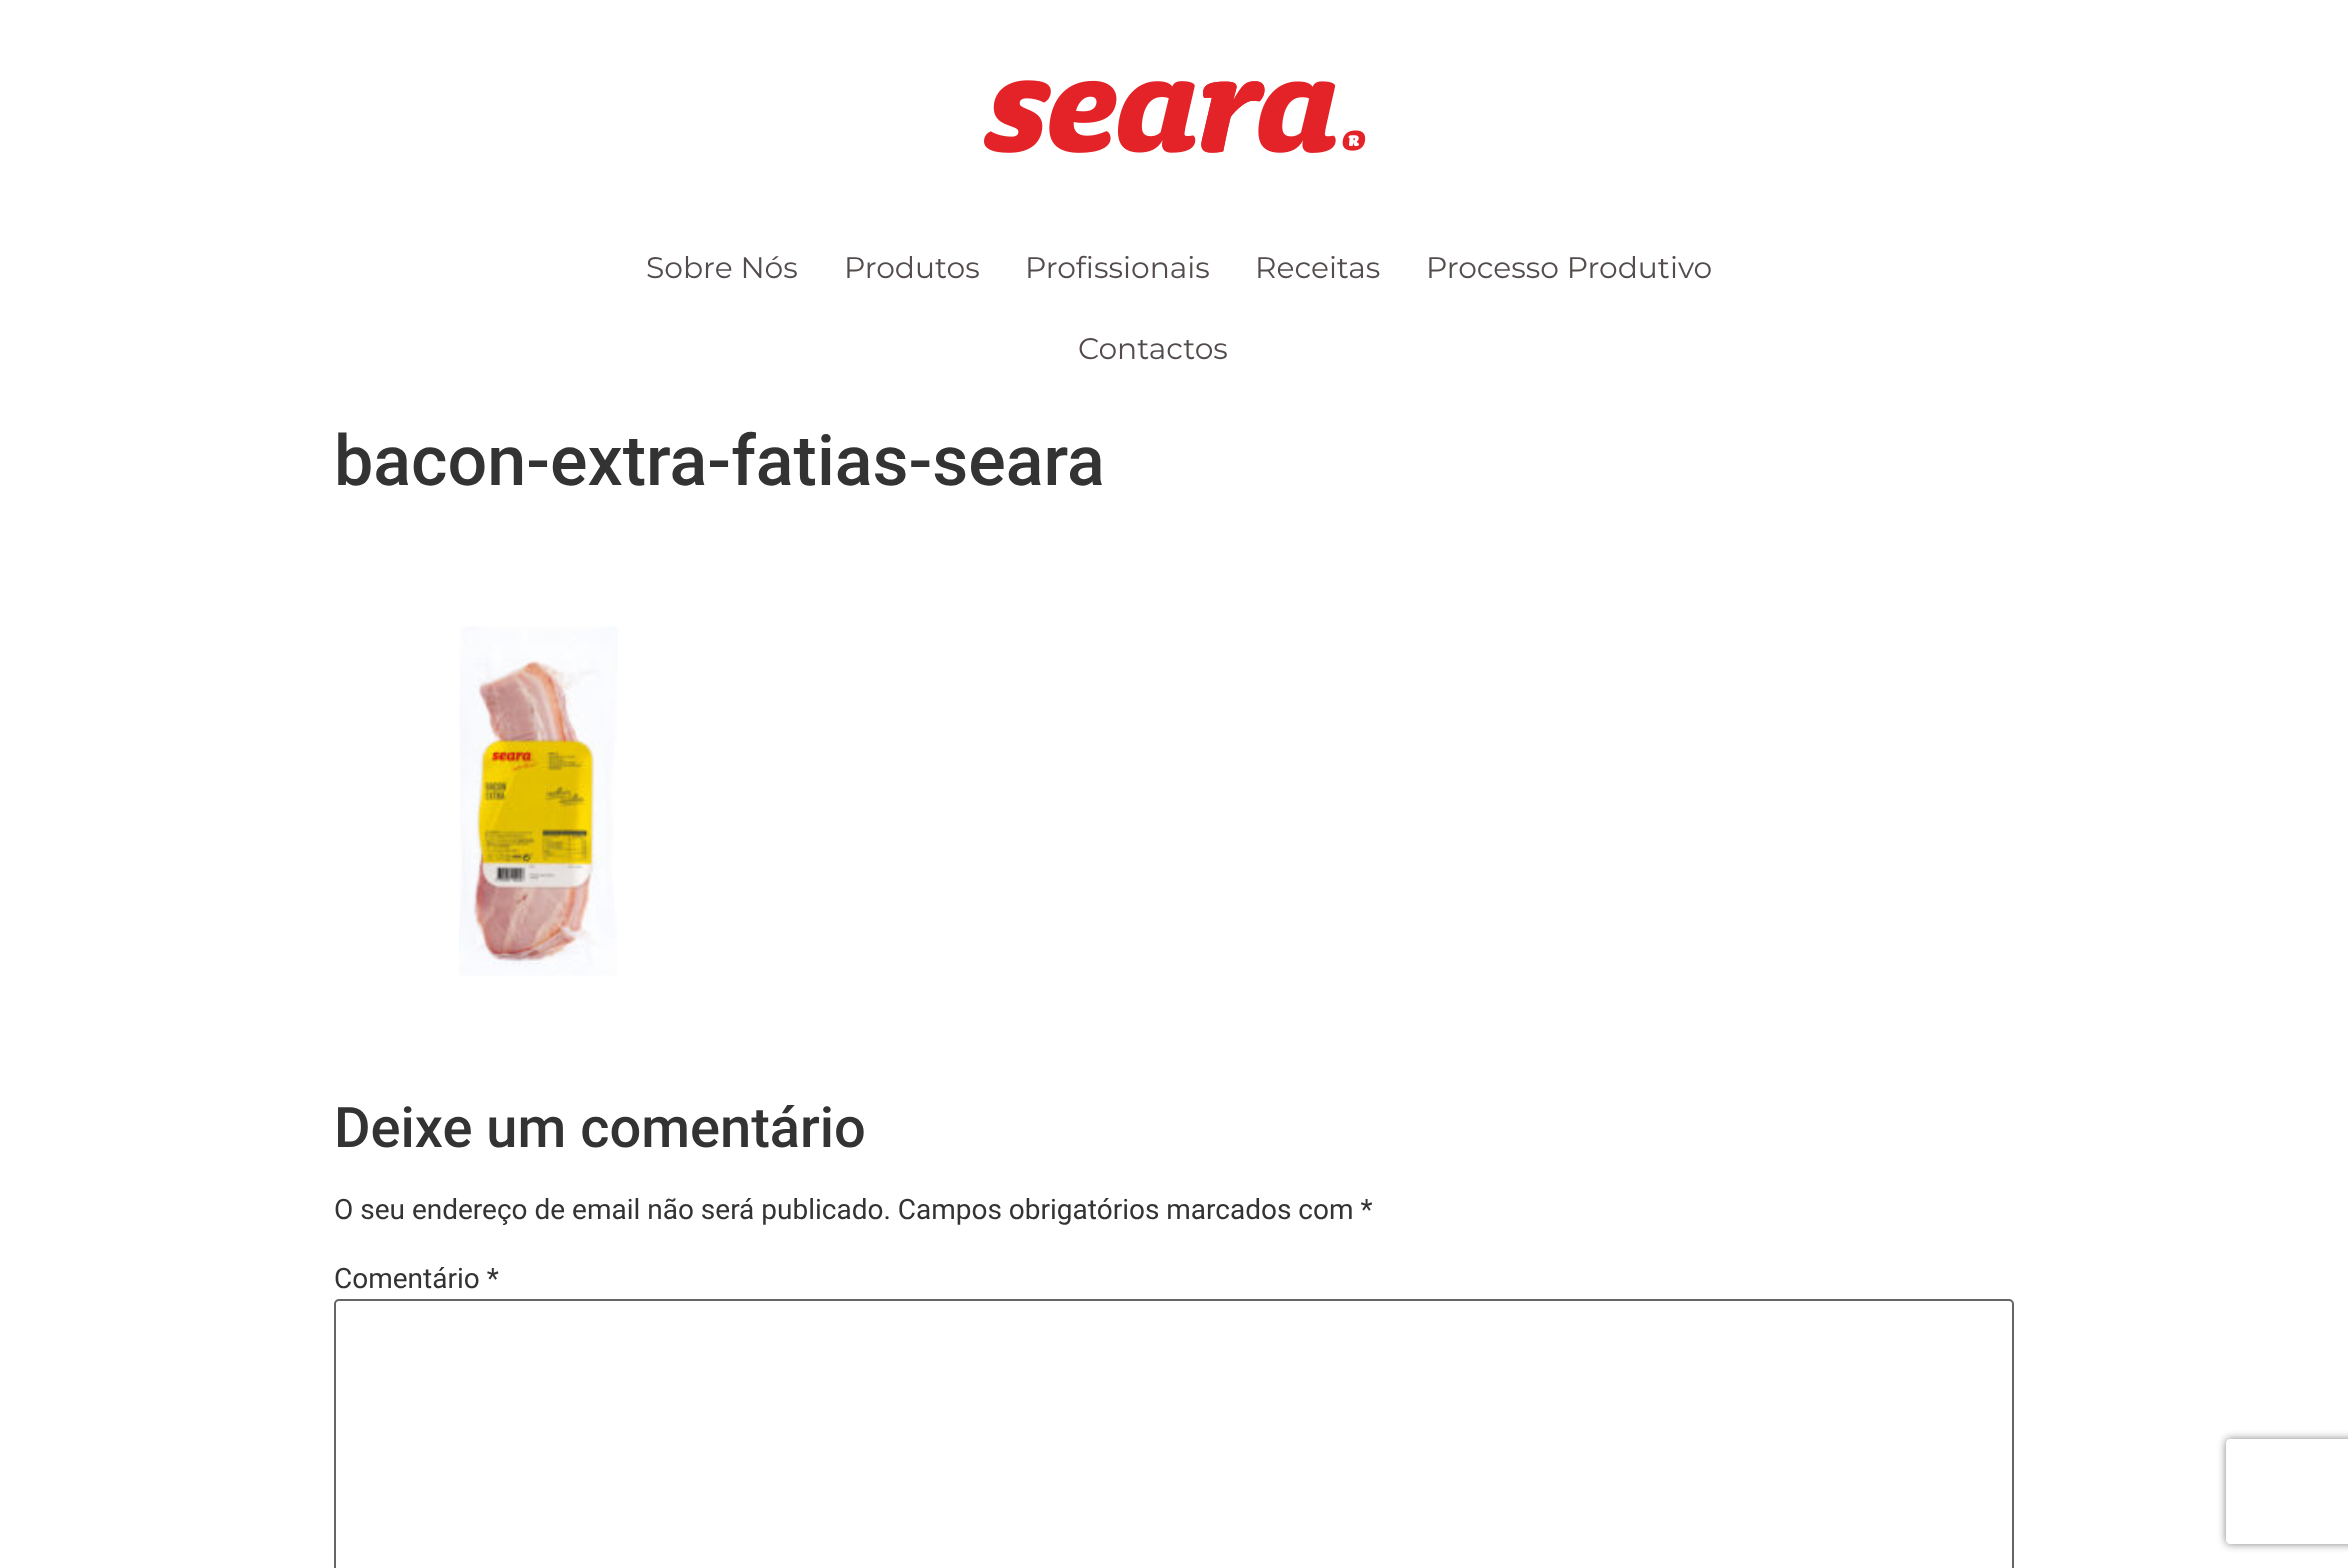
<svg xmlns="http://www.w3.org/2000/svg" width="2348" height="1568">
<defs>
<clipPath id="clip1"><path d="M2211 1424h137v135h-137zm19 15h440c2 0 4 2 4 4v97c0 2-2 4-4 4h-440c-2 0-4-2-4-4v-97c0-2 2-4 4-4z" clip-rule="evenodd"/></clipPath>
</defs>
<rect width="100%" height="100%" fill="#fff"/>
<image x="984" y="80" width="382" height="73" href="media/1.png"/>
<text x="646" y="278" style="font-family:Montserrat;font-size:29.75px;fill:#544c4c">Sobre Nós</text>
<text x="844" y="278" style="font-family:Montserrat;font-size:29.75px;fill:#544c4c">Produtos</text>
<text x="1025" y="278" style="font-family:Montserrat;font-size:29.75px;fill:#544c4c">Profissionais</text>
<text x="1255" y="278" style="font-family:Montserrat;font-size:29.75px;fill:#544c4c">Receitas</text>
<text x="1426" y="278" style="font-family:Montserrat;font-size:29.75px;fill:#544c4c">Processo Produtivo</text>
<text x="1078" y="359" style="font-family:Montserrat;font-size:29.75px;fill:#544c4c">Contactos</text>
<text x="334" y="485" style="font-family:Roboto;font-size:70px;font-weight:500;fill:#333">bacon-extra-fatias-seara</text>
<image x="459" y="626" width="159" height="350" href="media/2.png"/>
<text x="334" y="1147" style="font-family:Roboto;font-size:56px;font-weight:500;fill:#333">Deixe um comentário</text>
<text x="334" y="1219" style="font-family:Roboto;font-size:28px;fill:#333">O seu endereço de email não será publicado. Campos obrigatórios marcados com *</text>
<text x="334" y="1288" style="font-family:Roboto;font-size:28px;fill:#333">Comentário *</text>
<rect x="335" y="1300" width="1678" height="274" rx="4" fill="none" stroke="#666" stroke-width="2"/>
<g clip-path="url(#clip1)">
<rect x="2226" y="1439" width="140" height="105" rx="4" fill="#808080" filter="blur(4.5px)"/>
</g>
</svg>
